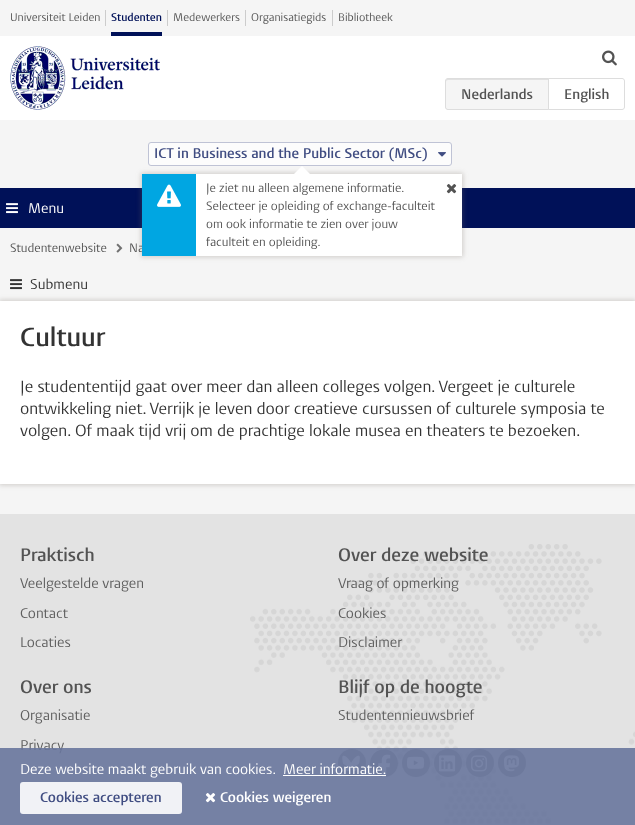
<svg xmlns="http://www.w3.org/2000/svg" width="635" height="825">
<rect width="100%" height="100%" fill="#f5f5f5"/>
<rect y="36" width="635" height="84" fill="#fff"/>
<rect x="105" y="10" width="1" height="16" fill="#ccc"/>
<text x="10" y="21" style="font-family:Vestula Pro;font-size:11px;fill:#535353">Universiteit Leiden</text>
<rect x="167" y="10" width="1" height="16" fill="#ccc"/>
<text x="111" y="21" style="font-family:Vestula Pro;font-size:11px;font-weight:600;fill:#001158">Studenten</text>
<rect x="111" y="32" width="51" height="4" fill="#001158"/>
<rect x="245" y="10" width="1" height="16" fill="#ccc"/>
<text x="173" y="21" style="font-family:Vestula Pro;font-size:11px;fill:#535353">Medewerkers</text>
<rect x="332" y="10" width="1" height="16" fill="#ccc"/>
<text x="251" y="21" style="font-family:Vestula Pro;font-size:11px;fill:#535353">Organisatiegids</text>
<text x="338" y="21" style="font-family:Vestula Pro;font-size:11px;fill:#535353">Bibliotheek</text>
<image x="10" y="46" width="150" height="64" href="media/1.png"/>
<image x="602" y="50" width="15" height="16" href="media/2.png"/>
<path d="M448 78h101v32h-101c-1.5 0-3-1.5-3-3v-26c0-1.5 1.5-3 3-3z" fill="#f5f5f5"/>
<path d="M448 80h100v-1h-100c-2 0-2 2-2 3c0-1 1-2 2-2z" fill="#e1e1e1"/>
<path d="M448 78.5h100.5v31h-100.5c-1.5 0-2.5-1-2.5-2.5v-26c0-1.5 1-2.5 2.5-2.5z" fill="none" stroke="#ddd"/>
<text x="461" y="99" style="font-family:Vestula Pro;font-size:14px;font-weight:600;fill:#535353">Nederlands</text>
<path d="M548.5 78.5h73.5c1.5 0 2.5 1 2.5 2.5v26c0 1.5-1 2.5-2.5 2.5h-73.5z" fill="#fff" stroke="#ddd"/>
<text x="564" y="99" style="font-family:Vestula Pro;font-size:14px;font-weight:600;fill:#535353">English</text>
<rect y="188" width="635" height="40" fill="#001158"/>
<image x="6" y="203" width="12" height="11" href="media/3.png"/>
<text x="28" y="213" style="font-family:Vestula Pro;font-size:14px;fill:#fff">Menu</text>
<rect x="148.5" y="142.5" width="303" height="23" rx="2.5" fill="#fcfcfc" stroke="#bfc3d5"/>
<text x="154" y="158" style="font-family:Vestula Pro;font-size:14px;font-weight:600;fill:#404d82">ICT in Business and the Public Sector (MSc)</text>
<image x="438" y="152" width="8" height="5" href="media/4.png"/>
<rect x="141" y="173" width="322" height="84" fill="#786e644d" filter="blur(2.5px)"/>
<rect x="196" y="174" width="266" height="82" fill="#fff"/>
<path d="M310 174h-16l8-8z" fill="#fff"/>
<text x="129" y="252" style="font-family:Vestula Pro;font-size:12px;fill:#535353">Na</text>
<rect x="142" y="174" width="54" height="82" fill="#00a6e2"/>
<image x="157" y="184" width="24" height="23" href="media/5.png"/>
<text x="206" y="192" style="font-family:Vestula Pro;font-size:12px;fill:#535353">Je ziet nu alleen algemene informatie.</text>
<image x="446" y="184" width="11" height="10" href="media/6.png"/>
<text x="206" y="210" style="font-family:Vestula Pro;font-size:12px;fill:#535353">Selecteer je opleiding of exchange-faculteit</text>
<text x="206" y="228" style="font-family:Vestula Pro;font-size:12px;fill:#535353">om ook informatie te zien over jouw</text>
<text x="206" y="246" style="font-family:Vestula Pro;font-size:12px;fill:#535353">faculteit en opleiding.</text>
<text x="10" y="252" style="font-family:Vestula Pro;font-size:12px;fill:#535353">Studentenwebsite</text>
<image x="116" y="243" width="7" height="10" href="media/7.png"/>
<image x="10" y="279" width="12" height="11" href="media/8.png"/>
<text x="30" y="289" style="font-family:Vestula Pro;font-size:14px;fill:#333">Submenu</text>
<rect x="-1" y="300" width="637" height="185" fill="#786e644d" filter="blur(2.5px)"/>
<rect y="301" width="635" height="183" fill="#fff"/>
<text x="20" y="346" style="font-family:Vestula Pro;font-size:26px;font-weight:600;fill:#333">Cultuur</text>
<text x="20" y="392" style="font-family:Vestula Pro;font-size:16px;fill:#333">Je studententijd gaat over meer dan alleen colleges volgen. Vergeet je culturele</text>
<text x="20" y="414" style="font-family:Vestula Pro;font-size:16px;fill:#333">ontwikkeling niet. Verrijk je leven door creatieve cursussen of culturele symposia te</text>
<text x="20" y="436" style="font-family:Vestula Pro;font-size:16px;fill:#333">volgen. Of maak tijd vrij om de prachtige lokale musea en theaters te bezoeken.</text>
<rect y="514" width="635" height="311" fill="#e3e3e3"/>
<image x="250" y="544" width="385" height="280" href="media/9.png"/>
<text x="20" y="561" style="font-family:Vestula Pro;font-size:18px;font-weight:600;fill:#535353">Praktisch</text>
<text x="20" y="588" style="font-family:Vestula Pro;font-size:14px;fill:#5e5e5e">Veelgestelde vragen</text>
<text x="20" y="618" style="font-family:Vestula Pro;font-size:14px;fill:#5e5e5e">Contact</text>
<text x="20" y="647" style="font-family:Vestula Pro;font-size:14px;fill:#5e5e5e">Locaties</text>
<text x="338" y="561" style="font-family:Vestula Pro;font-size:18px;font-weight:600;fill:#535353">Over deze website</text>
<text x="338" y="588" style="font-family:Vestula Pro;font-size:14px;fill:#5e5e5e">Vraag of opmerking</text>
<text x="338" y="618" style="font-family:Vestula Pro;font-size:14px;fill:#5e5e5e">Cookies</text>
<text x="338" y="647" style="font-family:Vestula Pro;font-size:14px;fill:#5e5e5e">Disclaimer</text>
<text x="20" y="693" style="font-family:Vestula Pro;font-size:18px;font-weight:600;fill:#535353">Over ons</text>
<text x="20" y="720" style="font-family:Vestula Pro;font-size:14px;fill:#5e5e5e">Organisatie</text>
<text x="20" y="750" style="font-family:Vestula Pro;font-size:14px;fill:#5e5e5e">Privacy</text>
<text x="338" y="693" style="font-family:Vestula Pro;font-size:18px;font-weight:600;fill:#535353">Blijf op de hoogte</text>
<text x="338" y="720" style="font-family:Vestula Pro;font-size:14px;fill:#5e5e5e">Studentennieuwsbrief</text>
<circle cx="352" cy="763" r="14" fill="#9a9a9a"/>
<image x="342" y="755" width="18" height="17" href="media/10.png"/>
<circle cx="384" cy="763" r="14" fill="#fff"/>
<image x="370" y="749" width="28" height="28" href="media/11.png"/>
<circle cx="416" cy="763" r="14" fill="#9a9a9a"/>
<image x="407" y="756" width="18" height="13" href="media/12.png"/>
<circle cx="448" cy="763" r="14" fill="#9a9a9a"/>
<image x="439" y="755" width="17" height="17" href="media/13.png"/>
<circle cx="480" cy="763" r="14" fill="#9a9a9a"/>
<image x="471" y="755" width="16" height="17" href="media/14.png"/>
<circle cx="512" cy="763" r="14" fill="#9a9a9a"/>
<image x="504" y="755" width="15" height="17" href="media/15.png"/>
<rect y="748" width="635" height="77" fill="#68769ce6"/>
<text x="20" y="774" style="font-family:Vestula Pro;font-size:14px;fill:#fff">Deze website maakt gebruik van cookies.</text>
<text x="283" y="774" style="font-family:Vestula Pro;font-size:14px;fill:#fff">Meer informatie.</text>
<rect x="283" y="775" width="103" height="1" fill="#fff"/>
<rect x="20" y="782" width="162" height="32" rx="3" fill="#f1f2f6"/>
<text x="40" y="802" style="font-family:Vestula Pro;font-size:14px;font-weight:600;fill:#404d82">Cookies accepteren</text>
<image x="205" y="793" width="11" height="10" href="media/16.png"/>
<text x="220" y="802" style="font-family:Vestula Pro;font-size:14px;font-weight:600;fill:#fff">Cookies weigeren</text>
</svg>
